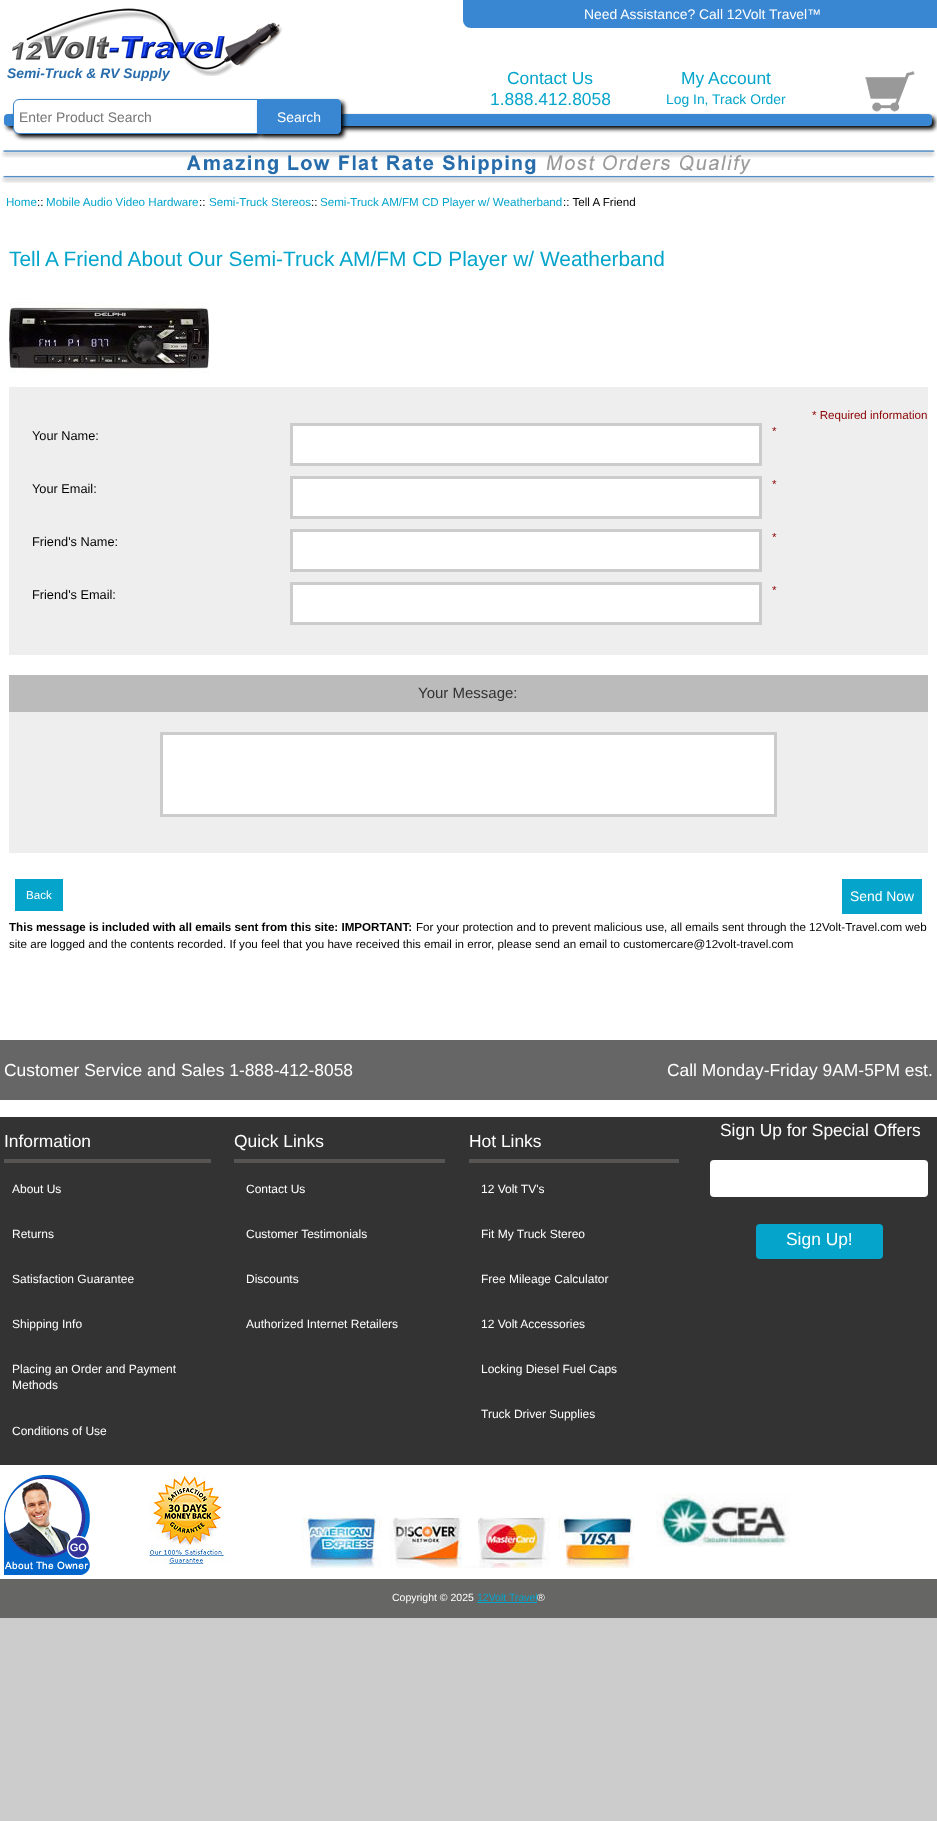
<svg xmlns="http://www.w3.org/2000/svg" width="937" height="1821">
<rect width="100%" height="100%" fill="#ccc"/>
<rect width="937" height="1579" fill="#fff"/>
<path d="M463 0h474v28h-466c-4.5 0-8-3.5-8-8z" fill="#3987d2"/>
<text x="584" y="19" style="font-family:Liberation Sans;font-size:13.9px;fill:#fff">Need Assistance? Call 12Volt Travel™</text>
<image x="12" y="8" width="271" height="68" href="media/1.png"/>
<text x="7" y="78" style="font-family:Liberation Sans;font-size:13.9px;font-weight:bold;font-style:italic;fill:#286cab">Semi-Truck &amp; RV Supply</text>
<text x="507" y="84" style="font-family:Liberation Sans;font-size:17.4px;fill:#05a5cb">Contact Us</text>
<text x="490" y="105" style="font-family:Liberation Sans;font-size:17.4px;fill:#05a5cb">1.888.412.8058</text>
<text x="681" y="84" style="font-family:Liberation Sans;font-size:17.4px;fill:#05a5cb">My Account</text>
<text x="666" y="104" style="font-family:Liberation Sans;font-size:13.9px;fill:#05a5cb">Log In, Track Order</text>
<image x="865" y="71" width="50" height="41" href="media/2.png"/>
<rect x="7" y="117" width="928" height="12" rx="4" fill="#000" filter="blur(2px)"/>
<rect x="4" y="114" width="928" height="12" rx="4" fill="#3987d2"/>
<rect x="16" y="102" width="247" height="35" rx="6" fill="#000" filter="blur(2px)"/>
<path d="M19 99.5h240.5v34h-240.5c-3 0-5.5-2.5-5.5-5.5v-23c0-3 2.5-5.5 5.5-5.5z" fill="#fff" stroke="#3987d2"/>
<text x="19" y="122" style="font-family:Liberation Sans;font-size:13.9px;fill:#757575">Enter Product Search</text>
<rect x="260" y="102" width="84" height="35" rx="4" fill="#000" filter="blur(2px)"/>
<path d="M257 99h80c2 0 4 2 4 4v27c0 2-2 4-4 4h-80z" fill="#3987d2"/>
<text x="277" y="122" style="font-family:Liberation Sans;font-size:13.9px;fill:#fff">Search</text>
<image x="1" y="150" width="935" height="33" href="media/3.png"/>
<text x="6" y="206" style="font-family:Liberation Sans;font-size:11.6px;fill:#05a5cb">Home</text>
<text x="37" y="206" style="font-family:Liberation Sans;font-size:11.6px;fill:#000">::</text>
<text x="46" y="206" style="font-family:Liberation Sans;font-size:11.6px;fill:#05a5cb">Mobile Audio Video Hardware</text>
<text x="199" y="206" style="font-family:Liberation Sans;font-size:11.6px;fill:#000">::</text>
<text x="209" y="206" style="font-family:Liberation Sans;font-size:11.6px;fill:#05a5cb">Semi-Truck Stereos</text>
<text x="311" y="206" style="font-family:Liberation Sans;font-size:11.6px;fill:#000">::</text>
<text x="320" y="206" style="font-family:Liberation Sans;font-size:11.6px;fill:#05a5cb">Semi-Truck AM/FM CD Player w/ Weatherband</text>
<text x="563" y="206" style="font-family:Liberation Sans;font-size:11.6px;fill:#000">:: Tell A Friend</text>
<text x="9" y="266" style="font-family:Liberation Sans;font-size:20.9px;fill:#05a5cb">Tell A Friend About Our Semi-Truck AM/FM CD Player w/ Weatherband</text>
<image x="9" y="302" width="200" height="71" href="media/4.png"/>
<rect x="9" y="387" width="919" height="268" fill="#eee"/>
<text x="812" y="419" style="font-family:Liberation Sans;font-size:11.6px;fill:#8b0000">* Required information</text>
<rect x="291.5" y="424.5" width="469" height="40" fill="#fff" stroke="#ccc" stroke-width="3"/>
<text x="772" y="435" style="font-family:Liberation Sans;font-size:11.6px;fill:#8b0000">*</text>
<text x="32" y="440" style="font-family:Liberation Sans;font-size:12.75px;fill:#000">Your Name:</text>
<rect x="291.5" y="477.5" width="469" height="40" fill="#fff" stroke="#ccc" stroke-width="3"/>
<text x="772" y="488" style="font-family:Liberation Sans;font-size:11.6px;fill:#8b0000">*</text>
<text x="32" y="493" style="font-family:Liberation Sans;font-size:12.75px;fill:#000">Your Email:</text>
<rect x="291.5" y="530.5" width="469" height="40" fill="#fff" stroke="#ccc" stroke-width="3"/>
<text x="772" y="541" style="font-family:Liberation Sans;font-size:11.6px;fill:#8b0000">*</text>
<text x="32" y="546" style="font-family:Liberation Sans;font-size:12.75px;fill:#000">Friend's Name:</text>
<rect x="291.5" y="583.5" width="469" height="40" fill="#fff" stroke="#ccc" stroke-width="3"/>
<text x="772" y="594" style="font-family:Liberation Sans;font-size:11.6px;fill:#8b0000">*</text>
<text x="32" y="599" style="font-family:Liberation Sans;font-size:12.75px;fill:#000">Friend's Email:</text>
<rect x="9" y="712" width="919" height="141" fill="#eee"/>
<rect x="9" y="675" width="919" height="37" fill="#bbb"/>
<text x="418" y="698" style="font-family:Liberation Sans;font-size:15px;fill:#333">Your Message:</text>
<rect x="161.5" y="733.5" width="614" height="82" fill="#fff" stroke="#ccc" stroke-width="3"/>
<rect x="15" y="879" width="48" height="32" fill="#05a5cb"/>
<text x="26" y="899" style="font-family:Liberation Sans;font-size:11.6px;fill:#fff">Back</text>
<rect x="842" y="879" width="80" height="35" fill="#05a5cb"/>
<text x="850" y="901" style="font-family:Liberation Sans;font-size:13.9px;fill:#fff">Send Now</text>
<text x="9" y="931" style="font-family:Liberation Sans;font-size:11.6px;font-weight:bold;fill:#000">This message is included with all emails sent from this site: IMPORTANT:</text>
<text x="416" y="931" style="font-family:Liberation Sans;font-size:11.6px;fill:#000">For your protection and to prevent malicious use, all emails sent through the 12Volt-Travel.com web</text>
<text x="9" y="948" style="font-family:Liberation Sans;font-size:11.6px;fill:#000">site are logged and the contents recorded. If you feel that you have received this email in error, please send an email to customercare@12volt-travel.com</text>
<rect y="1040" width="937" height="60" fill="#666"/>
<text x="4" y="1076" style="font-family:Liberation Sans;font-size:17.4px;fill:#fff">Customer Service and Sales 1-888-412-8058</text>
<text x="667" y="1076" style="font-family:Liberation Sans;font-size:17.4px;fill:#fff">Call Monday-Friday 9AM-5PM est.</text>
<rect y="1117" width="937" height="348" fill="#333"/>
<text x="4" y="1147" style="font-family:Liberation Sans;font-size:17.4px;fill:#fff">Information</text>
<rect x="4" y="1159" width="207" height="4" fill="#575454"/>
<text x="12" y="1193" style="font-family:Liberation Sans;font-size:12px;fill:#fff">About Us</text>
<text x="12" y="1238" style="font-family:Liberation Sans;font-size:12px;fill:#fff">Returns</text>
<text x="12" y="1283" style="font-family:Liberation Sans;font-size:12px;fill:#fff">Satisfaction Guarantee</text>
<text x="12" y="1328" style="font-family:Liberation Sans;font-size:12px;fill:#fff">Shipping Info</text>
<text x="12" y="1373" style="font-family:Liberation Sans;font-size:12px;fill:#fff">Placing an Order and Payment</text>
<text x="12" y="1389" style="font-family:Liberation Sans;font-size:12px;fill:#fff">Methods</text>
<text x="12" y="1435" style="font-family:Liberation Sans;font-size:12px;fill:#fff">Conditions of Use</text>
<text x="234" y="1147" style="font-family:Liberation Sans;font-size:17.4px;fill:#fff">Quick Links</text>
<rect x="234" y="1159" width="211" height="4" fill="#575454"/>
<text x="246" y="1193" style="font-family:Liberation Sans;font-size:12px;fill:#fff">Contact Us</text>
<text x="246" y="1238" style="font-family:Liberation Sans;font-size:12px;fill:#fff">Customer Testimonials</text>
<text x="246" y="1283" style="font-family:Liberation Sans;font-size:12px;fill:#fff">Discounts</text>
<text x="246" y="1328" style="font-family:Liberation Sans;font-size:12px;fill:#fff">Authorized Internet Retailers</text>
<text x="469" y="1147" style="font-family:Liberation Sans;font-size:17.4px;fill:#fff">Hot Links</text>
<rect x="469" y="1159" width="210" height="4" fill="#575454"/>
<text x="481" y="1193" style="font-family:Liberation Sans;font-size:12px;fill:#fff">12 Volt TV's</text>
<text x="481" y="1238" style="font-family:Liberation Sans;font-size:12px;fill:#fff">Fit My Truck Stereo</text>
<text x="481" y="1283" style="font-family:Liberation Sans;font-size:12px;fill:#fff">Free Mileage Calculator</text>
<text x="481" y="1328" style="font-family:Liberation Sans;font-size:12px;fill:#fff">12 Volt Accessories</text>
<text x="481" y="1373" style="font-family:Liberation Sans;font-size:12px;fill:#fff">Locking Diesel Fuel Caps</text>
<text x="481" y="1418" style="font-family:Liberation Sans;font-size:12px;fill:#fff">Truck Driver Supplies</text>
<text x="720" y="1136" style="font-family:Liberation Sans;font-size:17.4px;fill:#fff">Sign Up for Special Offers</text>
<rect x="710" y="1160" width="218" height="37" rx="4" fill="#fff"/>
<rect x="756" y="1224" width="127" height="35" rx="4" fill="#05a5cb"/>
<text x="786" y="1245" style="font-family:Liberation Sans;font-size:17.4px;fill:#fff">Sign Up!</text>
<image x="4" y="1475" width="86" height="100" href="media/5.png"/>
<image x="149" y="1475" width="80" height="91" href="media/6.png"/>
<image x="302" y="1515" width="332" height="53" href="media/7.png"/>
<image x="656" y="1493" width="134" height="54" href="media/8.png"/>
<rect y="1579" width="937" height="39" fill="#666665"/>
<text x="392" y="1601" style="font-family:Liberation Sans;font-size:10.5px;fill:#fff">Copyright © 2025</text>
<text x="477" y="1601" style="font-family:Liberation Sans;font-size:10.5px;fill:#05a5cb">12Volt Travel</text>
<rect x="477" y="1602" width="60" height="1" fill="#05a5cb"/>
<text x="537" y="1601" style="font-family:Liberation Sans;font-size:10.5px;fill:#fff">®</text>
</svg>
